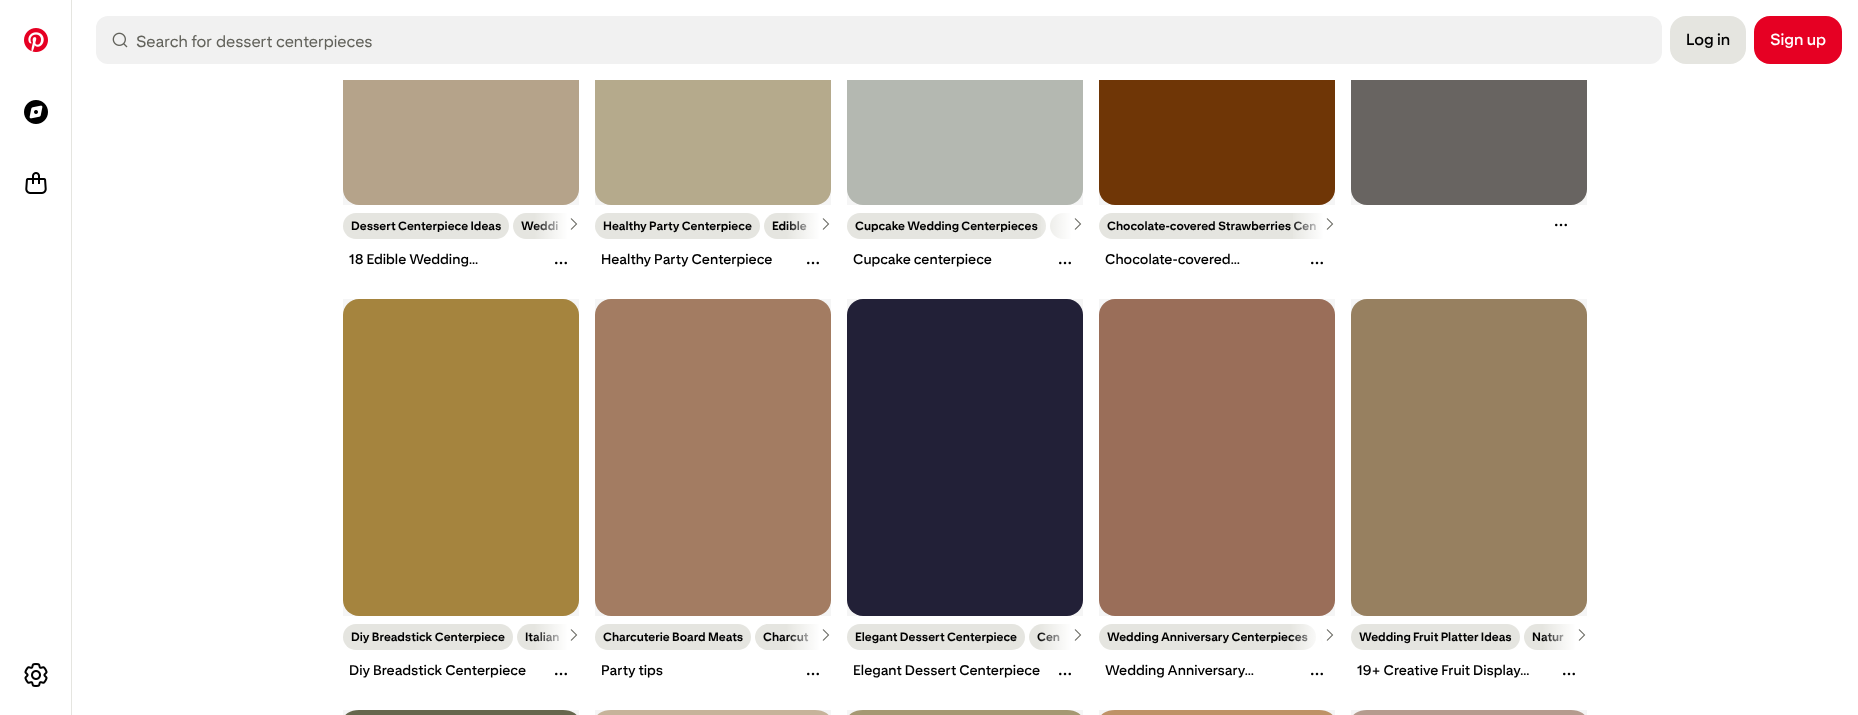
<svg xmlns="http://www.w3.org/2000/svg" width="1858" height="715">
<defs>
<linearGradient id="g1" gradientUnits="userSpaceOnUse" x1="802" y1="48" x2="802" y2="64"><stop offset="0" stop-color="#f1f1f1" stop-opacity="0"/><stop offset="1" stop-color="#f1f1f1"/></linearGradient>
<linearGradient id="g2" gradientUnits="userSpaceOnUse" x1="579" y1="224" x2="534" y2="224"><stop offset="0.25" stop-color="#fff"/><stop offset="1" stop-color="#fff" stop-opacity="0"/></linearGradient>
<linearGradient id="g3" gradientUnits="userSpaceOnUse" x1="831" y1="224" x2="786" y2="224"><stop offset="0.25" stop-color="#fff"/><stop offset="1" stop-color="#fff" stop-opacity="0"/></linearGradient>
<linearGradient id="g4" gradientUnits="userSpaceOnUse" x1="1083" y1="224" x2="1038" y2="224"><stop offset="0.25" stop-color="#fff"/><stop offset="1" stop-color="#fff" stop-opacity="0"/></linearGradient>
<linearGradient id="g5" gradientUnits="userSpaceOnUse" x1="1335" y1="224" x2="1290" y2="224"><stop offset="0.25" stop-color="#fff"/><stop offset="1" stop-color="#fff" stop-opacity="0"/></linearGradient>
<linearGradient id="g6" gradientUnits="userSpaceOnUse" x1="579" y1="635" x2="534" y2="635"><stop offset="0.25" stop-color="#fff"/><stop offset="1" stop-color="#fff" stop-opacity="0"/></linearGradient>
<linearGradient id="g7" gradientUnits="userSpaceOnUse" x1="831" y1="635" x2="786" y2="635"><stop offset="0.25" stop-color="#fff"/><stop offset="1" stop-color="#fff" stop-opacity="0"/></linearGradient>
<linearGradient id="g8" gradientUnits="userSpaceOnUse" x1="1083" y1="635" x2="1038" y2="635"><stop offset="0.25" stop-color="#fff"/><stop offset="1" stop-color="#fff" stop-opacity="0"/></linearGradient>
<linearGradient id="g9" gradientUnits="userSpaceOnUse" x1="1335" y1="635" x2="1290" y2="635"><stop offset="0.25" stop-color="#fff"/><stop offset="1" stop-color="#fff" stop-opacity="0"/></linearGradient>
<linearGradient id="g10" gradientUnits="userSpaceOnUse" x1="1587" y1="635" x2="1542" y2="635"><stop offset="0.25" stop-color="#fff"/><stop offset="1" stop-color="#fff" stop-opacity="0"/></linearGradient>
</defs>
<rect width="100%" height="100%" fill="#fff"/>
<rect x="71" width="1" height="715" fill="#e5e5e0"/>
<image x="24" y="28" width="24" height="24" href="media/1.png"/>
<image x="24" y="100" width="24" height="24" href="media/2.png"/>
<image x="25" y="172" width="22" height="22" href="media/3.png"/>
<image x="24" y="663" width="24" height="24" href="media/4.png"/>
<rect x="1351" y="-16" width="236" height="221" rx="16" fill="#6d6965"/>
<rect x="343" y="-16" width="236" height="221" rx="16" fill="#bdaa90"/>
<rect x="595" y="-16" width="236" height="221" rx="16" fill="#bdb192"/>
<rect x="847" y="-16" width="236" height="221" rx="16" fill="#bcc0b9"/>
<rect x="1099" y="-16" width="236" height="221" rx="16" fill="#743907"/>
<rect x="343" width="1244" height="80" fill="#fff"/>
<rect x="96" y="16" width="1566" height="48" rx="12" fill="#f1f1f1"/>
<image x="112" y="32" width="16" height="16" href="media/5.png"/>
<text x="136" y="47" style="font-family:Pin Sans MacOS;font-size:16px;fill:#62625b">Search for</text>
<text x="216" y="47" style="font-family:Pin Sans MacOS;font-size:16px;fill:#62625b">dessert centerpieces</text>
<rect x="136" y="48" width="1331" height="16" rx="8" fill="url(#g1)"/>
<rect x="1670" y="16" width="76" height="48" rx="16" fill="#e5e5e0"/>
<text x="1686" y="45" style="font-family:Pin Sans MacOS;font-size:16px;font-weight:500;fill:#000">Log in</text>
<rect x="1754" y="16" width="88" height="48" rx="16" fill="#e60023"/>
<text x="1770" y="45" style="font-family:Pin Sans MacOS;font-size:16px;font-weight:500;fill:#fff">Sign up</text>
<rect x="1351" y="80" width="236" height="125" fill="#0000000a"/>
<image x="1555" y="223" width="12" height="4" href="media/6.png"/>
<rect x="343" y="80" width="236" height="125" fill="#0000000a"/>
<path d="M526 213h53v26h-53c-7 0-13-6-13-13c0-7 6-13 13-13z" fill="#e5e5e0"/>
<text x="521" y="230" style="font-family:Pin Sans MacOS;font-size:12px;font-weight:bold;fill:#000">Weddi</text>
<rect x="535" y="213" width="44" height="26" fill="url(#g2)"/>
<image x="570" y="218" width="8" height="12" href="media/7.png"/>
<rect x="343" y="213" width="166" height="26" rx="13" fill="#e5e5e0"/>
<text x="351" y="230" style="font-family:Pin Sans MacOS;font-size:12px;font-weight:bold;fill:#000">Dessert Centerpiece Ideas</text>
<text x="349" y="264" style="font-family:Pin Sans MacOS;font-size:14px;font-weight:500;fill:#000">18 Edible Wedding…</text>
<image x="555" y="261" width="12" height="4" href="media/6.png"/>
<rect x="595" y="80" width="236" height="125" fill="#0000000a"/>
<rect x="595" y="213" width="165" height="26" rx="13" fill="#e5e5e0"/>
<text x="603" y="230" style="font-family:Pin Sans MacOS;font-size:12px;font-weight:bold;fill:#000">Healthy Party Centerpiece</text>
<path d="M777 213h54v26h-54c-7 0-13-6-13-13c0-7 6-13 13-13z" fill="#e5e5e0"/>
<text x="772" y="230" style="font-family:Pin Sans MacOS;font-size:12px;font-weight:bold;fill:#000">Edible</text>
<rect x="787" y="213" width="44" height="26" fill="url(#g3)"/>
<image x="822" y="218" width="8" height="12" href="media/7.png"/>
<text x="601" y="264" style="font-family:Pin Sans MacOS;font-size:14px;font-weight:500;fill:#000">Healthy Party Centerpiece</text>
<image x="807" y="261" width="12" height="4" href="media/6.png"/>
<rect x="847" y="80" width="236" height="125" fill="#0000000a"/>
<rect x="847" y="213" width="199" height="26" rx="13" fill="#e5e5e0"/>
<text x="855" y="230" style="font-family:Pin Sans MacOS;font-size:12px;font-weight:bold;fill:#000">Cupcake Wedding Centerpieces</text>
<path d="M1063 213h20v26h-20c-7 0-13-6-13-13c0-7 6-13 13-13z" fill="#e5e5e0"/>
<rect x="1041" y="213" width="42" height="26" fill="url(#g4)"/>
<image x="1074" y="218" width="8" height="12" href="media/7.png"/>
<text x="853" y="264" style="font-family:Pin Sans MacOS;font-size:14px;font-weight:500;fill:#000">Cupcake centerpiece</text>
<image x="1059" y="261" width="12" height="4" href="media/6.png"/>
<rect x="1099" y="80" width="236" height="125" fill="#0000000a"/>
<path d="M1112 213h223v26h-223c-7 0-13-6-13-13c0-7 6-13 13-13z" fill="#e5e5e0"/>
<text x="1107" y="230" style="font-family:Pin Sans MacOS;font-size:12px;font-weight:bold;fill:#000">Chocolate-covered Strawberries Cen</text>
<rect x="1293" y="213" width="42" height="26" fill="url(#g5)"/>
<image x="1326" y="218" width="8" height="12" href="media/7.png"/>
<text x="1105" y="264" style="font-family:Pin Sans MacOS;font-size:14px;font-weight:500;fill:#000">Chocolate-covered…</text>
<image x="1311" y="261" width="12" height="4" href="media/6.png"/>
<rect x="343" y="299" width="236" height="317" rx="16" fill="#ac8a41"/>
<rect x="343" y="299" width="236" height="317" fill="#0000000a"/>
<path d="M530 624h49v26h-49c-7 0-13-6-13-13c0-7 6-13 13-13z" fill="#e5e5e0"/>
<text x="525" y="641" style="font-family:Pin Sans MacOS;font-size:12px;font-weight:bold;fill:#000">Italian</text>
<rect x="535" y="624" width="44" height="26" fill="url(#g6)"/>
<image x="570" y="629" width="8" height="12" href="media/7.png"/>
<rect x="343" y="624" width="170" height="26" rx="13" fill="#e5e5e0"/>
<text x="351" y="641" style="font-family:Pin Sans MacOS;font-size:12px;font-weight:bold;fill:#000">Diy Breadstick Centerpiece</text>
<text x="349" y="675" style="font-family:Pin Sans MacOS;font-size:14px;font-weight:500;fill:#000">Diy Breadstick Centerpiece</text>
<image x="555" y="672" width="12" height="4" href="media/6.png"/>
<rect x="595" y="299" width="236" height="317" rx="16" fill="#aa8266"/>
<rect x="595" y="299" width="236" height="317" fill="#0000000a"/>
<path d="M768 624h63v26h-63c-7 0-13-6-13-13c0-7 6-13 13-13z" fill="#e5e5e0"/>
<text x="763" y="641" style="font-family:Pin Sans MacOS;font-size:12px;font-weight:bold;fill:#000">Charcut</text>
<rect x="787" y="624" width="44" height="26" fill="url(#g7)"/>
<image x="822" y="629" width="8" height="12" href="media/7.png"/>
<rect x="595" y="624" width="156" height="26" rx="13" fill="#e5e5e0"/>
<text x="603" y="641" style="font-family:Pin Sans MacOS;font-size:12px;font-weight:bold;fill:#000">Charcuterie Board Meats</text>
<text x="601" y="675" style="font-family:Pin Sans MacOS;font-size:14px;font-weight:500;fill:#000">Party tips</text>
<image x="807" y="672" width="12" height="4" href="media/6.png"/>
<rect x="847" y="299" width="236" height="317" rx="16" fill="#24223a"/>
<rect x="847" y="299" width="236" height="317" fill="#0000000a"/>
<rect x="847" y="624" width="178" height="26" rx="13" fill="#e5e5e0"/>
<text x="855" y="641" style="font-family:Pin Sans MacOS;font-size:12px;font-weight:bold;fill:#000">Elegant Dessert Centerpiece</text>
<path d="M1042 624h41v26h-41c-7 0-13-6-13-13c0-7 6-13 13-13z" fill="#e5e5e0"/>
<text x="1037" y="641" style="font-family:Pin Sans MacOS;font-size:12px;font-weight:bold;fill:#000">Cen</text>
<rect x="1039" y="624" width="44" height="26" fill="url(#g8)"/>
<image x="1074" y="629" width="8" height="12" href="media/7.png"/>
<text x="853" y="675" style="font-family:Pin Sans MacOS;font-size:14px;font-weight:500;fill:#000">Elegant Dessert Centerpiece</text>
<image x="1059" y="672" width="12" height="4" href="media/6.png"/>
<rect x="1099" y="299" width="236" height="317" rx="16" fill="#a1735d"/>
<rect x="1099" y="299" width="236" height="317" fill="#0000000a"/>
<rect x="1099" y="624" width="217" height="26" rx="13" fill="#e5e5e0"/>
<text x="1107" y="641" style="font-family:Pin Sans MacOS;font-size:12px;font-weight:bold;fill:#000">Wedding Anniversary Centerpieces</text>
<path d="M1333 624h2v26h-2c-7 0-13-6-13-13c0-7 6-13 13-13z" fill="#e5e5e0"/>
<rect x="1291" y="624" width="44" height="26" fill="url(#g9)"/>
<image x="1326" y="629" width="8" height="12" href="media/7.png"/>
<text x="1105" y="675" style="font-family:Pin Sans MacOS;font-size:14px;font-weight:500;fill:#000">Wedding Anniversary…</text>
<image x="1311" y="672" width="12" height="4" href="media/6.png"/>
<rect x="1351" y="299" width="236" height="317" rx="16" fill="#9e8664"/>
<rect x="1351" y="299" width="236" height="317" fill="#0000000a"/>
<rect x="1351" y="624" width="169" height="26" rx="13" fill="#e5e5e0"/>
<text x="1359" y="641" style="font-family:Pin Sans MacOS;font-size:12px;font-weight:bold;fill:#000">Wedding Fruit Platter Ideas</text>
<path d="M1537 624h50v26h-50c-7 0-13-6-13-13c0-7 6-13 13-13z" fill="#e5e5e0"/>
<text x="1532" y="641" style="font-family:Pin Sans MacOS;font-size:12px;font-weight:bold;fill:#000">Natur</text>
<rect x="1543" y="624" width="44" height="26" fill="url(#g10)"/>
<image x="1578" y="629" width="8" height="12" href="media/7.png"/>
<text x="1357" y="675" style="font-family:Pin Sans MacOS;font-size:14px;font-weight:500;fill:#000">19+ Creative Fruit Display…</text>
<image x="1563" y="672" width="12" height="4" href="media/6.png"/>
<rect x="343" y="710" width="236" height="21" rx="16" fill="#6b6c51"/>
<rect x="343" y="710" width="236" height="5" fill="#0000000a"/>
<rect x="595" y="710" width="236" height="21" rx="16" fill="#cfbba1"/>
<rect x="595" y="710" width="236" height="5" fill="#0000000a"/>
<rect x="847" y="710" width="236" height="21" rx="16" fill="#ac9f77"/>
<rect x="847" y="710" width="236" height="5" fill="#0000000a"/>
<rect x="1099" y="710" width="236" height="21" rx="16" fill="#c6986b"/>
<rect x="1099" y="710" width="236" height="5" fill="#0000000a"/>
<rect x="1351" y="710" width="236" height="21" rx="16" fill="#bda294"/>
<rect x="1351" y="710" width="236" height="5" fill="#0000000a"/>
</svg>
